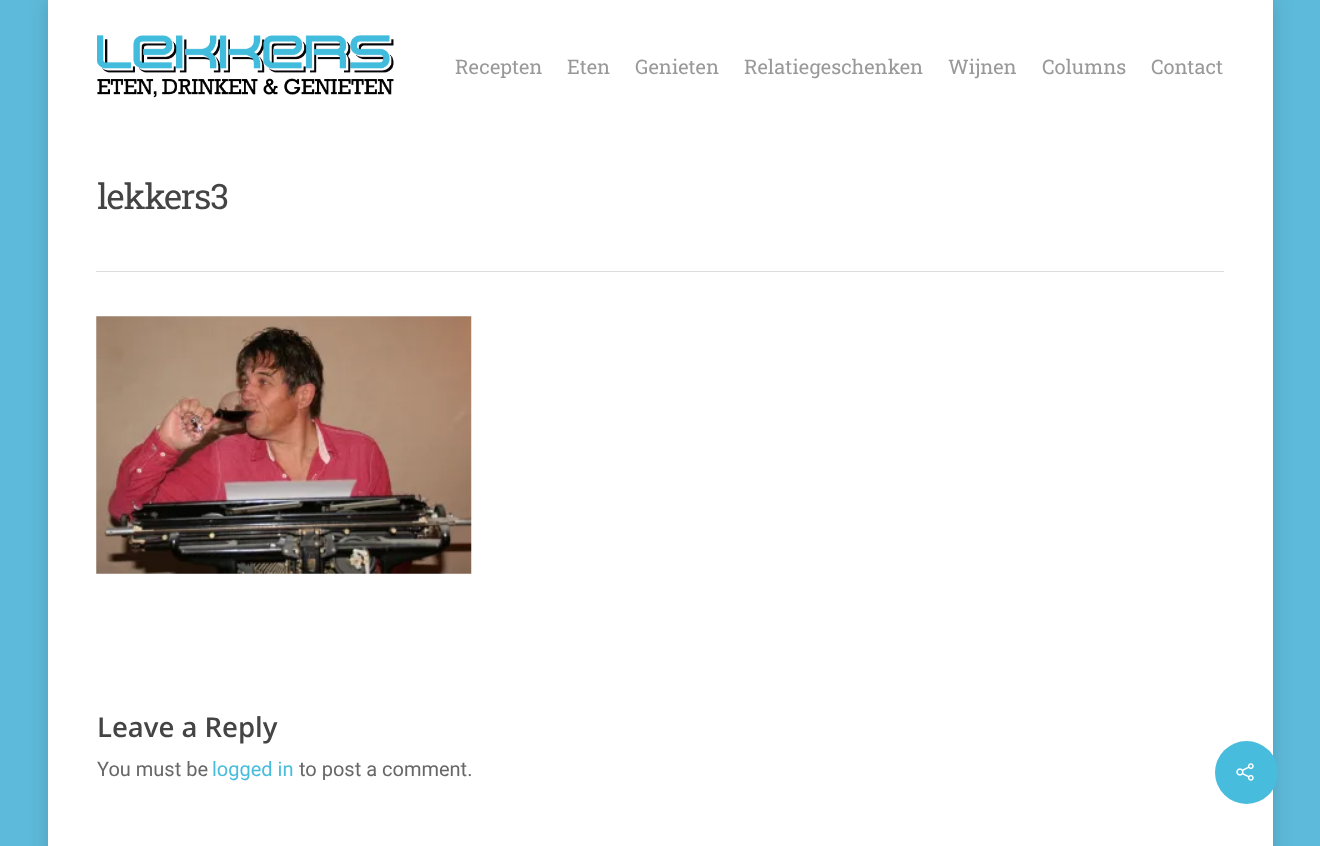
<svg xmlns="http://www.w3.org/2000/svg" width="1320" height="846">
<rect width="100%" height="100%" fill="#5ebada"/>
<rect x="48" width="1225" height="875" fill="#00000026" filter="blur(9.5px)"/>
<rect x="48" width="1225" height="846" fill="#fff"/>
<image x="97" y="35" width="297" height="63" href="media/1.png"/>
<text x="455" y="74" style="font-family:Roboto Slab;font-size:20px;fill:#999">Recepten</text>
<text x="567" y="74" style="font-family:Roboto Slab;font-size:20px;fill:#999">Eten</text>
<text x="635" y="74" style="font-family:Roboto Slab;font-size:20px;fill:#999">Genieten</text>
<text x="744" y="74" style="font-family:Roboto Slab;font-size:20px;fill:#999">Relatiegeschenken</text>
<text x="948" y="74" style="font-family:Roboto Slab;font-size:20px;fill:#999">Wijnen</text>
<text x="1042" y="74" style="font-family:Roboto Slab;font-size:20px;fill:#999">Columns</text>
<text x="1151" y="74" style="font-family:Roboto Slab;font-size:20px;fill:#999">Contact</text>
<rect x="96" y="271" width="1128" height="1" fill="#ddd"/>
<text x="97" y="209" style="font-family:Roboto Slab;font-size:35px;letter-spacing:-1.25px;fill:#444">lekkers3</text>
<image x="96" y="316" width="376" height="258" href="media/2.png"/>
<text x="97" y="737" style="font-family:Open Sans;font-size:27.5px;font-weight:600;fill:#444">Leave a Reply</text>
<text x="97" y="776" style="font-family:Roboto;font-size:20px;fill:#676767">You must be</text>
<text x="212" y="776" style="font-family:Roboto;font-size:20px;fill:#48bcdc">logged in</text>
<text x="299" y="776" style="font-family:Roboto;font-size:20px;fill:#676767">to post a comment.</text>
<circle cx="1246.5" cy="772.5" r="31.5" fill="#48bcdc"/>
<image x="1236" y="763" width="18" height="18" href="media/3.png"/>
</svg>
